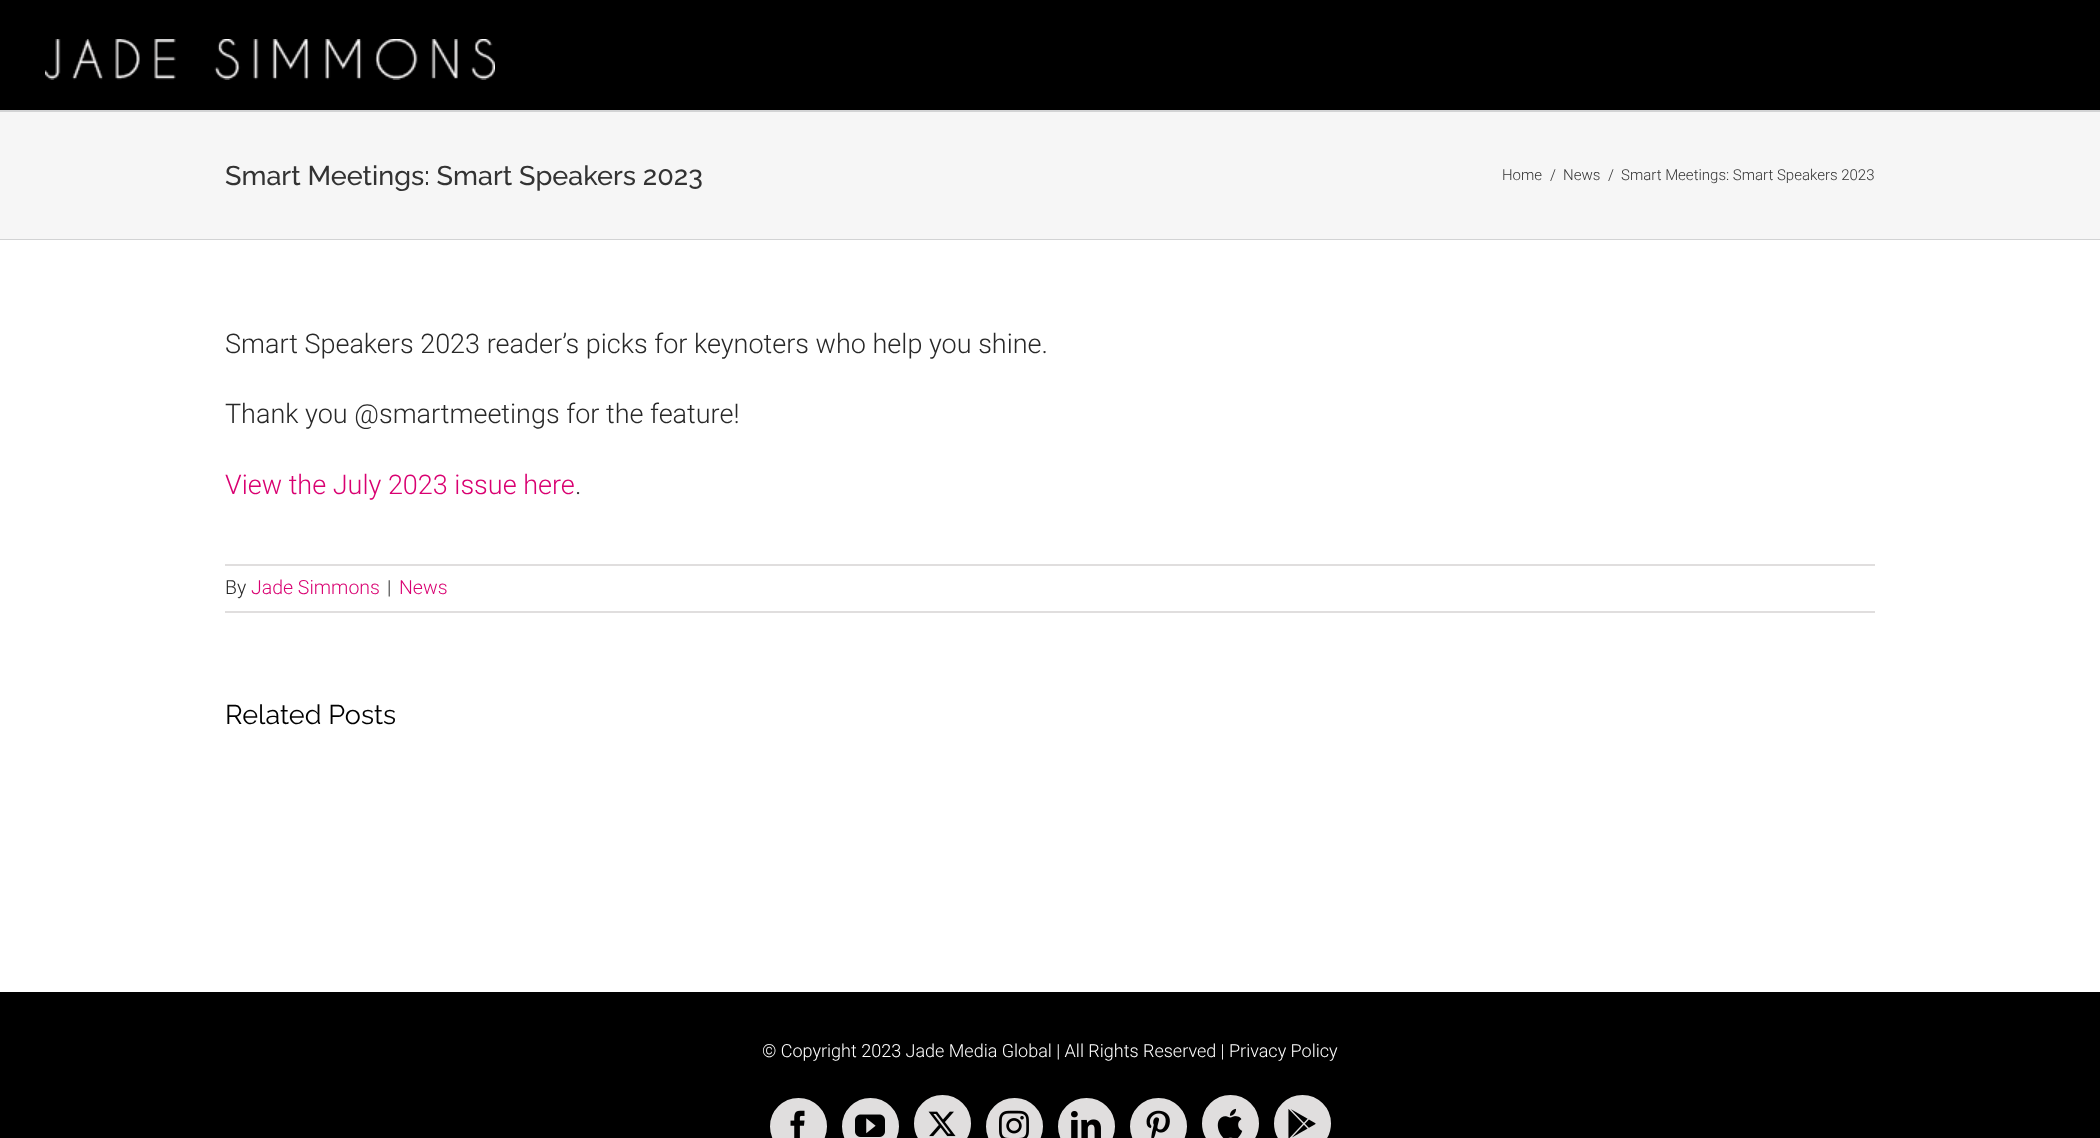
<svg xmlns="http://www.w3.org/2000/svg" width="2100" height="1138">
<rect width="100%" height="100%" fill="#f6f6f6"/>
<rect width="2100" height="110" fill="#000"/>
<image x="45" y="39" width="450" height="41" href="media/1.png"/>
<rect y="110" width="2100" height="2" fill="#d2d3d4"/>
<rect y="239" width="2100" height="1" fill="#d2d3d4"/>
<text x="225" y="185" style="font-family:Raleway;font-size:27px;font-weight:500;fill:#333">Smart Meetings: Smart Speakers 2023</text>
<text x="1502" y="180" style="font-family:Roboto;font-size:15px;font-weight:300;fill:#333">Home</text>
<text x="1550" y="180" style="font-family:Roboto;font-size:15px;font-weight:300;fill:#333">/</text>
<text x="1563" y="180" style="font-family:Roboto;font-size:15px;font-weight:300;fill:#333">News</text>
<text x="1608" y="180" style="font-family:Roboto;font-size:15px;font-weight:300;fill:#333">/</text>
<text x="1621" y="180" style="font-family:Roboto;font-size:15px;font-weight:300;fill:#333">Smart Meetings: Smart Speakers 2023</text>
<rect y="240" width="2100" height="752" fill="#fff"/>
<text x="225" y="353" style="font-family:Roboto;font-size:27px;font-weight:300;fill:#282828">Smart Speakers 2023 reader’s picks for keynoters who help you shine.</text>
<text x="225" y="423" style="font-family:Roboto;font-size:27px;font-weight:300;fill:#282828">Thank you @smartmeetings for the feature!</text>
<text x="225" y="494" style="font-family:Roboto;font-size:27px;font-weight:300;fill:#d90071">View the July 2023 issue here</text>
<text x="575" y="494" style="font-family:Roboto;font-size:27px;font-weight:300;fill:#282828">.</text>
<rect x="225" y="564" width="1650" height="2" fill="#e0dede"/>
<rect x="225" y="611" width="1650" height="2" fill="#e0dede"/>
<text x="225" y="594" style="font-family:Roboto;font-size:19.5px;font-weight:300;fill:#282828">By</text>
<text x="251" y="594" style="font-family:Roboto;font-size:19.5px;font-weight:300;fill:#d90071">Jade Simmons</text>
<text x="387" y="594" style="font-family:Roboto;font-size:19.5px;font-weight:300;fill:#282828">|</text>
<text x="399" y="594" style="font-family:Roboto;font-size:19.5px;font-weight:300;fill:#d90071">News</text>
<text x="225" y="724" style="font-family:Raleway;font-size:27px;fill:#000">Related Posts</text>
<rect y="992" width="2100" height="146" fill="#000"/>
<text x="762" y="1057" style="font-family:Roboto;font-size:18px;font-weight:300;fill:#fff">© Copyright 2023 Jade Media Global | All Rights Reserved | Privacy Policy</text>
<circle cx="798.5" cy="1126.5" r="27.5" fill="#e0dede" stroke="#e0dede" stroke-width="2"/>
<image x="790" y="1110" width="15" height="28" href="media/2.png"/>
<circle cx="870.5" cy="1126.5" r="27.5" fill="#e0dede" stroke="#e0dede" stroke-width="2"/>
<image x="855" y="1114" width="30" height="23" href="media/3.png"/>
<circle cx="942.5" cy="1123.5" r="27.5" fill="#e0dede" stroke="#e0dede" stroke-width="2"/>
<image x="928" y="1111" width="28" height="26" href="media/4.png"/>
<circle cx="1014.5" cy="1126.5" r="27.5" fill="#e0dede" stroke="#e0dede" stroke-width="2"/>
<image x="999" y="1110" width="30" height="28" href="media/5.png"/>
<circle cx="1086.5" cy="1126.5" r="27.5" fill="#e0dede" stroke="#e0dede" stroke-width="2"/>
<image x="1071" y="1111" width="30" height="27" href="media/6.png"/>
<circle cx="1158.5" cy="1126.5" r="27.5" fill="#e0dede" stroke="#e0dede" stroke-width="2"/>
<image x="1146" y="1110" width="24" height="28" href="media/7.png"/>
<circle cx="1230.5" cy="1123.5" r="27.5" fill="#e0dede" stroke="#e0dede" stroke-width="2"/>
<image x="1217" y="1108" width="26" height="30" href="media/8.png"/>
<circle cx="1302.5" cy="1123.5" r="27.5" fill="#e0dede" stroke="#e0dede" stroke-width="2"/>
<image x="1288" y="1109" width="28" height="29" href="media/9.png"/>
</svg>
